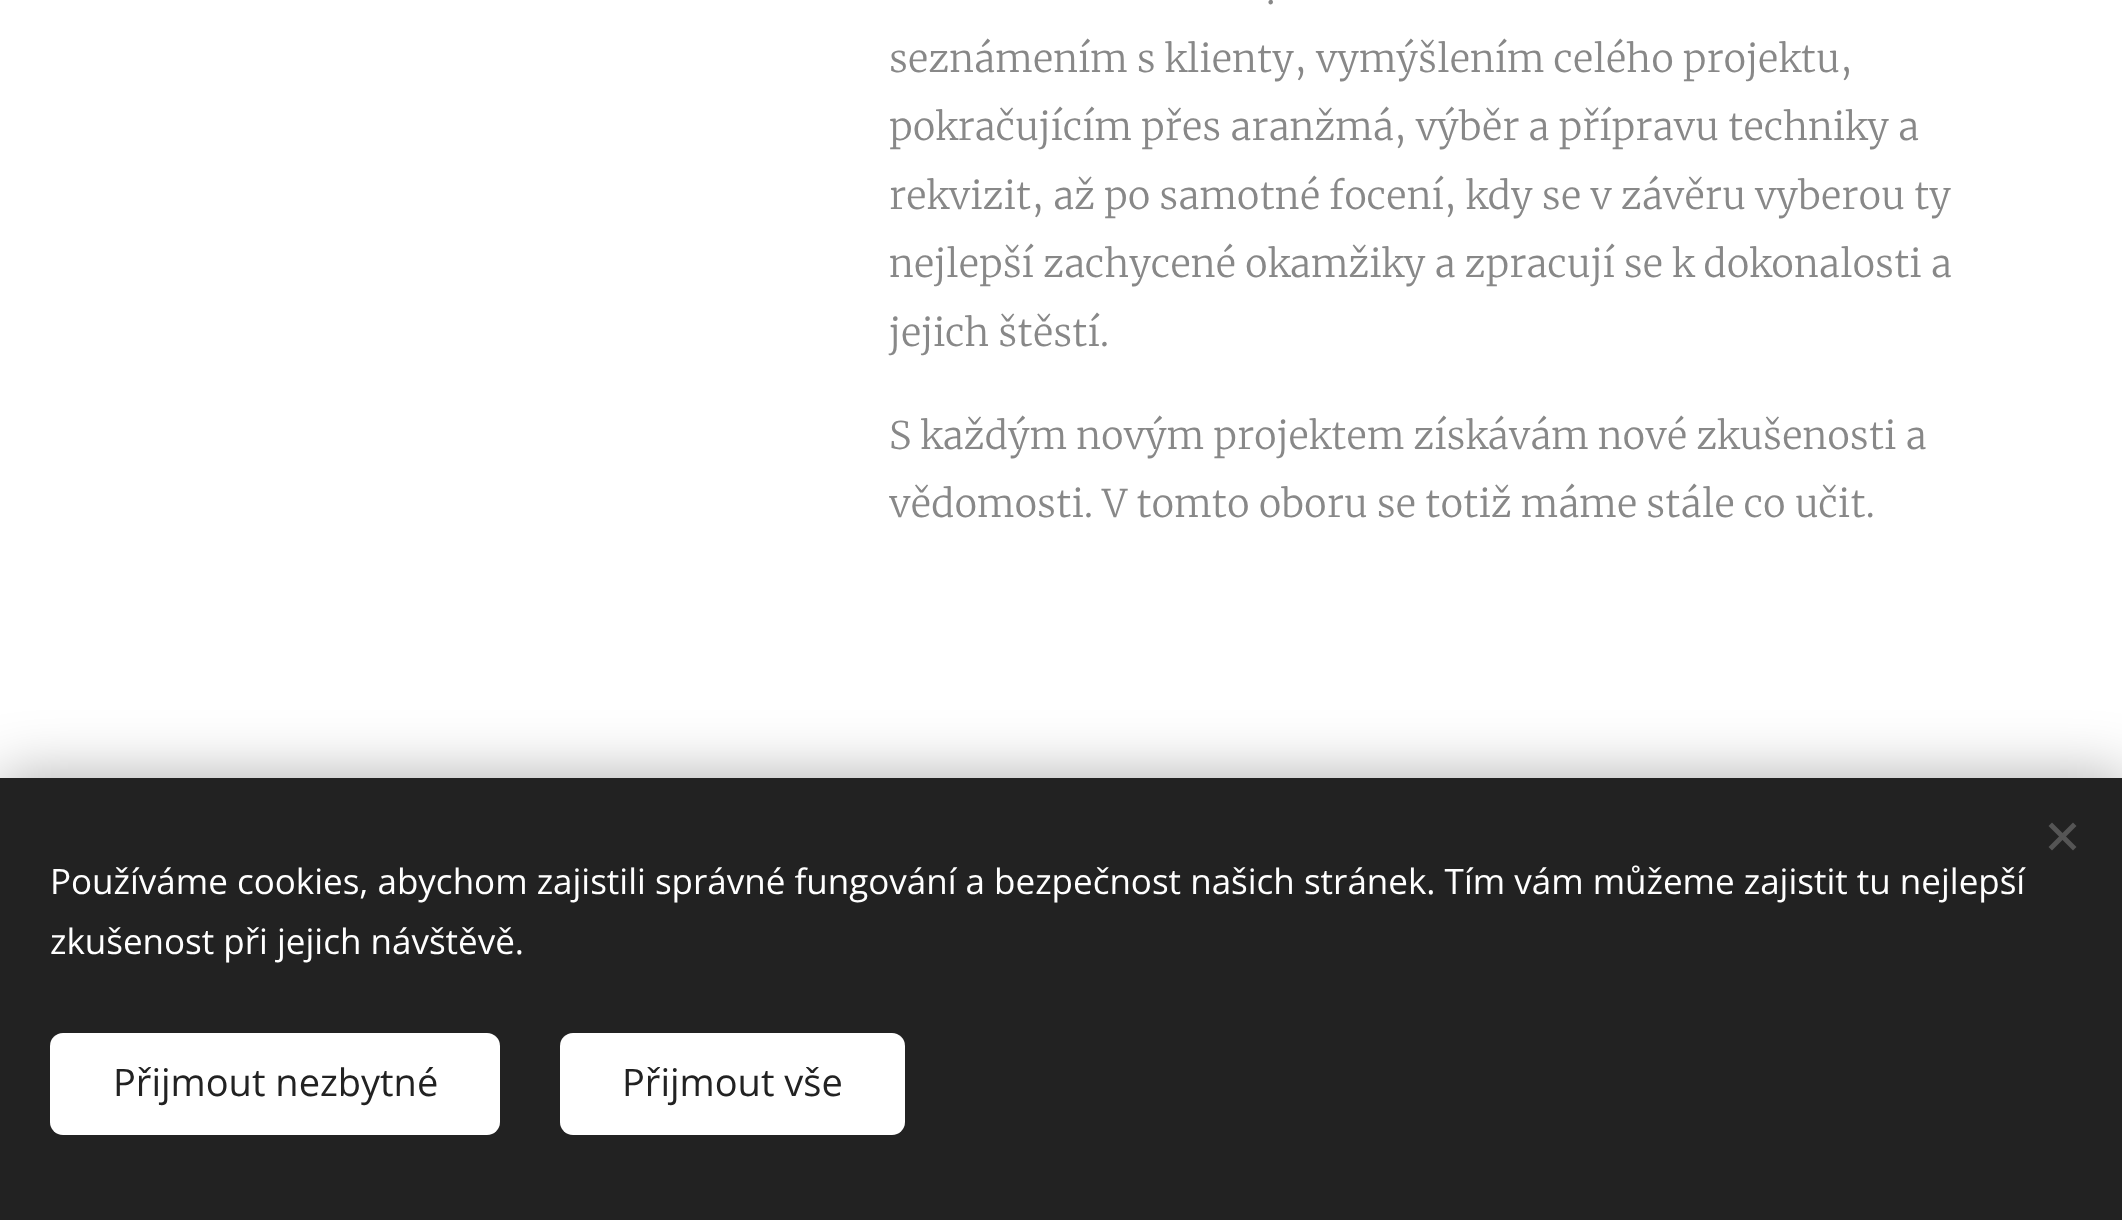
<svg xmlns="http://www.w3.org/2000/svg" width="2122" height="1220">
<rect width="100%" height="100%" fill="#fff"/>
<text x="1266" y="4" style="font-family:Merriweather;font-size:38px;font-weight:300;fill:#888">.</text>
<text x="889" y="72" style="font-family:Merriweather;font-size:38px;font-weight:300;fill:#888">seznámením s klienty, vymýšlením celého projektu,</text>
<text x="889" y="140" style="font-family:Merriweather;font-size:38px;font-weight:300;fill:#888">pokračujícím přes aranžmá, výběr a přípravu techniky a</text>
<text x="889" y="209" style="font-family:Merriweather;font-size:38px;font-weight:300;fill:#888">rekvizit, až po samotné focení, kdy se v závěru vyberou ty</text>
<text x="889" y="277" style="font-family:Merriweather;font-size:38px;font-weight:300;fill:#888">nejlepší zachycené okamžiky a zpracují se k dokonalosti a</text>
<text x="889" y="346" style="font-family:Merriweather;font-size:38px;font-weight:300;fill:#888">jejich štěstí.</text>
<text x="889" y="449" style="font-family:Merriweather;font-size:38px;font-weight:300;fill:#888">S každým novým projektem získávám nové zkušenosti a</text>
<text x="889" y="517" style="font-family:Merriweather;font-size:38px;font-weight:300;fill:#888">vědomosti. V tomto oboru se totiž máme stále co učit.</text>
<rect y="778" width="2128" height="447" fill="#00000054" filter="blur(31px)"/>
<rect y="778" width="2122" height="442" fill="#222"/>
<path d="M2048.5 847l24.5-24.5l3.5 3.5l-24.5 24.5z" fill="#555"/>
<path d="M2052 822.5l24.5 24.5l-3.5 3.5l-24.5-24.5z" fill="#555"/>
<text x="50" y="894" style="font-family:Open Sans;font-size:35px;fill:#fff">Používáme cookies, abychom zajistili správné fungování a bezpečnost našich stránek. Tím vám můžeme zajistit tu nejlepší</text>
<text x="50" y="954" style="font-family:Open Sans;font-size:35px;fill:#fff">zkušenost při jejich návštěvě.</text>
<rect x="50" y="1033" width="450" height="102" rx="13" fill="#fff"/>
<text x="113" y="1096" style="font-family:Open Sans;font-size:38px;fill:#222">Přijmout nezbytné</text>
<rect x="560" y="1033" width="345" height="102" rx="13" fill="#fff"/>
<text x="622" y="1096" style="font-family:Open Sans;font-size:38px;fill:#222">Přijmout vše</text>
</svg>
